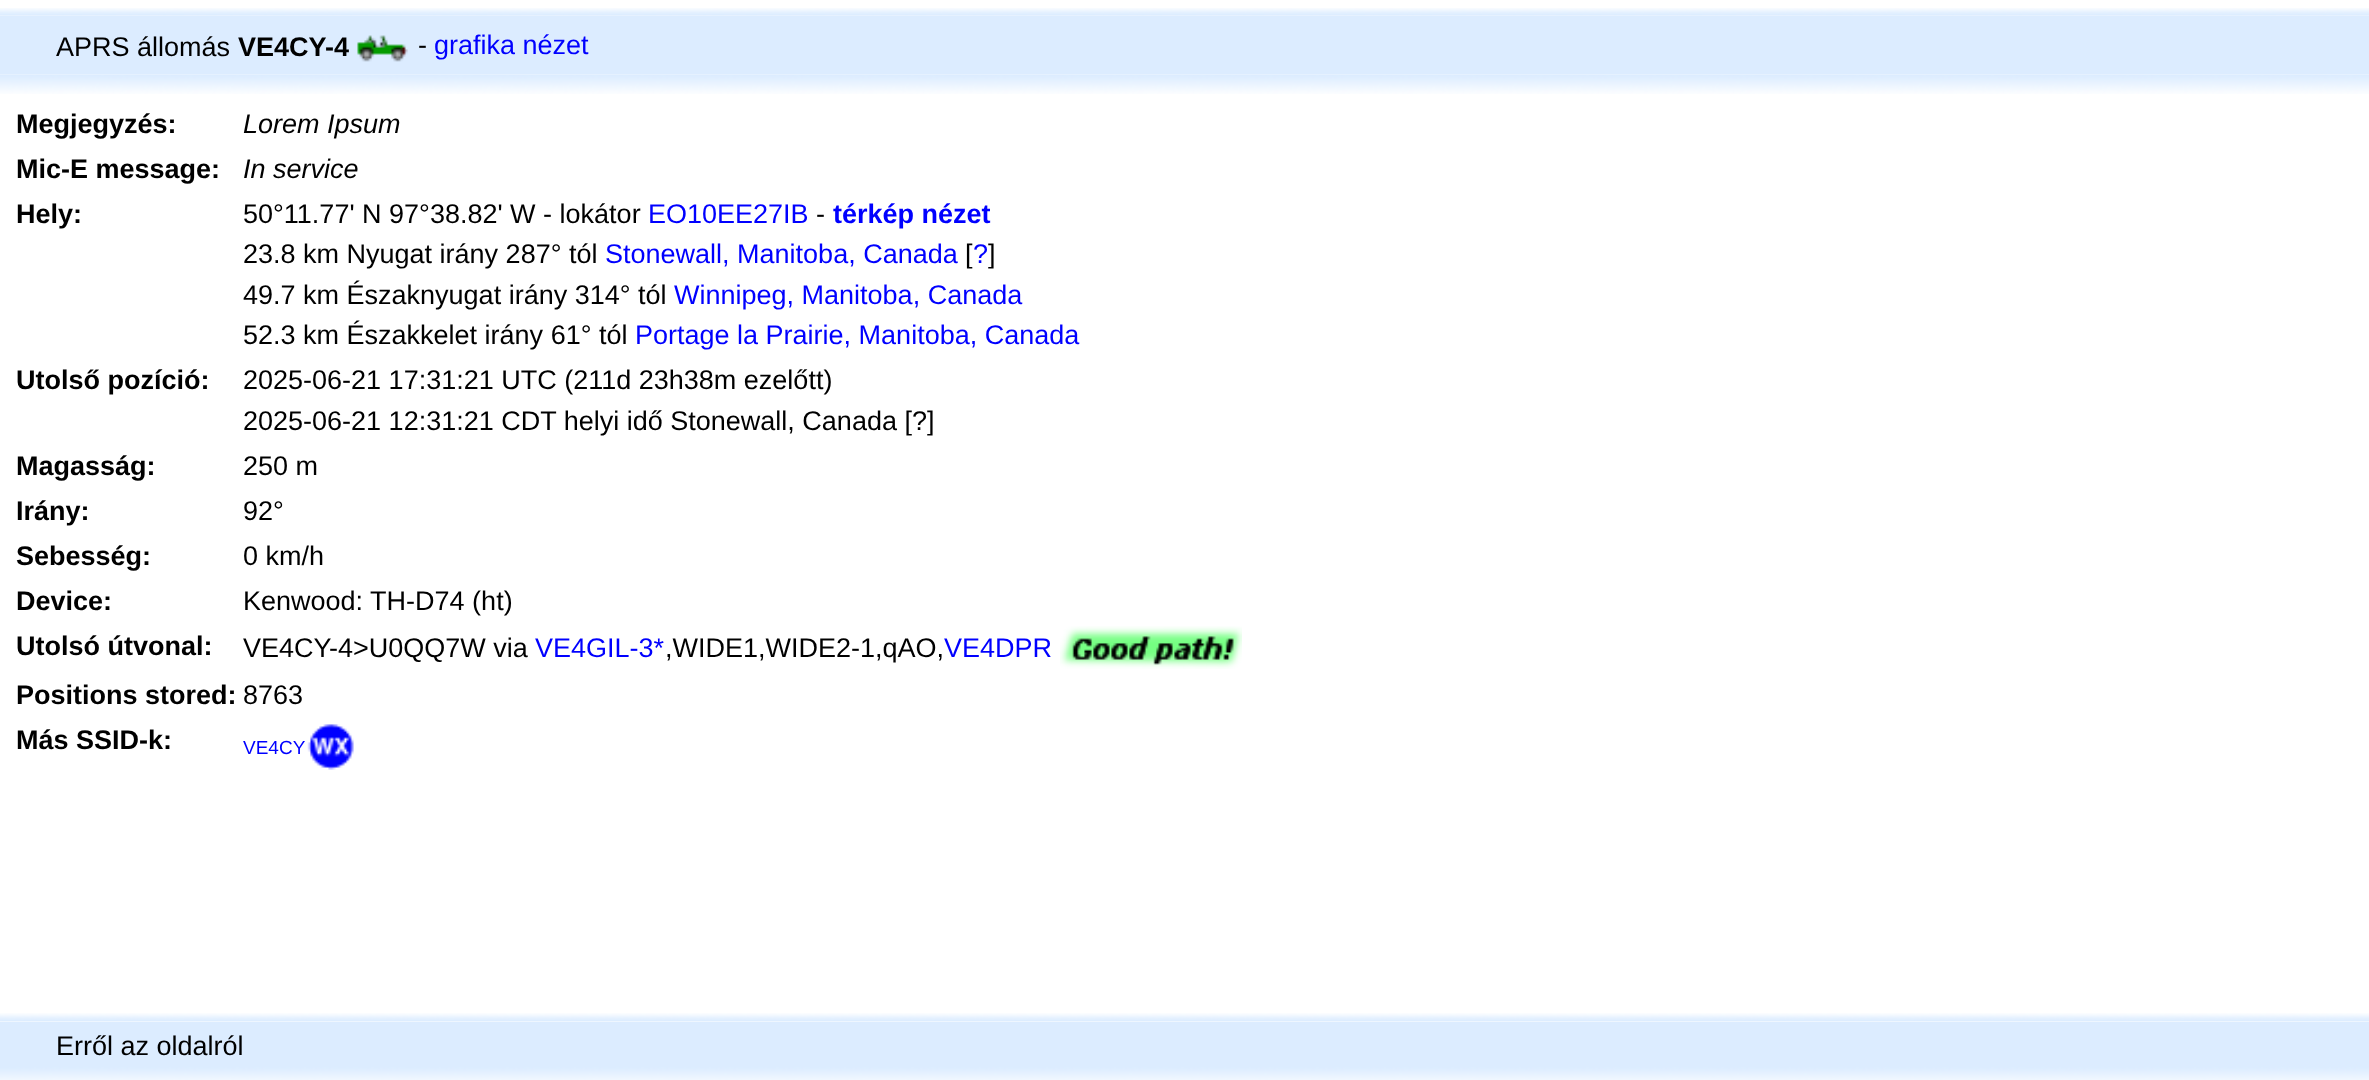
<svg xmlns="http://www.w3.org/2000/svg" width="2369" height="1080">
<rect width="100%" height="100%" fill="#fff"/>
<image x="0" y="8" width="2369" height="8" href="media/1.png"/>
<rect y="16" width="2369" height="58" fill="#dcecff"/>
<text x="56" y="56" style="font-family:Liberation Sans;font-size:27px;fill:#000">APRS állomás</text>
<text x="238" y="56" style="font-family:Liberation Sans;font-size:27px;font-weight:bold;fill:#000">VE4CY-4</text>
<image x="357" y="35" width="51" height="27" href="media/2.png"/>
<text x="418" y="54" style="font-family:Liberation Sans;font-size:27px;fill:#000">-</text>
<text x="434" y="54" style="font-family:Liberation Sans;font-size:27px;fill:#00f">grafika nézet</text>
<image x="0" y="74" width="2369" height="20" href="media/3.png"/>
<text x="16" y="133" style="font-family:Liberation Sans;font-size:27px;font-weight:bold;fill:#000">Megjegyzés:</text>
<text x="243" y="133" style="font-family:Liberation Sans;font-size:27px;font-style:italic;fill:#000">Lorem Ipsum</text>
<text x="16" y="178" style="font-family:Liberation Sans;font-size:27px;font-weight:bold;fill:#000">Mic-E message:</text>
<text x="243" y="178" style="font-family:Liberation Sans;font-size:27px;font-style:italic;fill:#000">In service</text>
<text x="16" y="223" style="font-family:Liberation Sans;font-size:27px;font-weight:bold;fill:#000">Hely:</text>
<text x="243" y="223" style="font-family:Liberation Sans;font-size:27px;fill:#000">50°11.77' N 97°38.82' W - lokátor</text>
<text x="648" y="223" style="font-family:Liberation Sans;font-size:27px;fill:#00f">EO10EE27IB</text>
<text x="816" y="223" style="font-family:Liberation Sans;font-size:27px;fill:#000">-</text>
<text x="833" y="223" style="font-family:Liberation Sans;font-size:27px;font-weight:bold;fill:#00f">térkép nézet</text>
<text x="243" y="263" style="font-family:Liberation Sans;font-size:27px;fill:#000">23.8 km Nyugat irány 287° tól</text>
<text x="605" y="263" style="font-family:Liberation Sans;font-size:27px;fill:#00f">Stonewall, Manitoba, Canada</text>
<text x="965" y="263" style="font-family:Liberation Sans;font-size:27px;fill:#000">[</text>
<text x="973" y="263" style="font-family:Liberation Sans;font-size:27px;fill:#00f">?</text>
<text x="988" y="263" style="font-family:Liberation Sans;font-size:27px;fill:#000">]</text>
<text x="243" y="304" style="font-family:Liberation Sans;font-size:27px;fill:#000">49.7 km Északnyugat irány 314° tól</text>
<text x="674" y="304" style="font-family:Liberation Sans;font-size:27px;fill:#00f">Winnipeg, Manitoba, Canada</text>
<text x="243" y="344" style="font-family:Liberation Sans;font-size:27px;fill:#000">52.3 km Északkelet irány 61° tól</text>
<text x="635" y="344" style="font-family:Liberation Sans;font-size:27px;fill:#00f">Portage la Prairie, Manitoba, Canada</text>
<text x="16" y="389" style="font-family:Liberation Sans;font-size:27px;font-weight:bold;fill:#000">Utolső pozíció:</text>
<text x="243" y="389" style="font-family:Liberation Sans;font-size:27px;fill:#000">2025-06-21 17:31:21 UTC (211d 23h38m ezelőtt)</text>
<text x="243" y="430" style="font-family:Liberation Sans;font-size:27px;fill:#000">2025-06-21 12:31:21 CDT helyi idő Stonewall, Canada [?]</text>
<text x="16" y="475" style="font-family:Liberation Sans;font-size:27px;font-weight:bold;fill:#000">Magasság:</text>
<text x="243" y="475" style="font-family:Liberation Sans;font-size:27px;fill:#000">250 m</text>
<text x="16" y="520" style="font-family:Liberation Sans;font-size:27px;font-weight:bold;fill:#000">Irány:</text>
<text x="243" y="520" style="font-family:Liberation Sans;font-size:27px;fill:#000">92°</text>
<text x="16" y="565" style="font-family:Liberation Sans;font-size:27px;font-weight:bold;fill:#000">Sebesség:</text>
<text x="243" y="565" style="font-family:Liberation Sans;font-size:27px;fill:#000">0 km/h</text>
<text x="16" y="610" style="font-family:Liberation Sans;font-size:27px;font-weight:bold;fill:#000">Device:</text>
<text x="243" y="610" style="font-family:Liberation Sans;font-size:27px;fill:#000">Kenwood: TH-D74 (ht)</text>
<text x="16" y="655" style="font-family:Liberation Sans;font-size:27px;font-weight:bold;fill:#000">Utolsó útvonal:</text>
<text x="243" y="657" style="font-family:Liberation Sans;font-size:27px;fill:#000">VE4CY-4&gt;U0QQ7W via</text>
<text x="535" y="657" style="font-family:Liberation Sans;font-size:27px;fill:#00f">VE4GIL-3*</text>
<text x="665" y="657" style="font-family:Liberation Sans;font-size:27px;fill:#000">,WIDE1,WIDE2-1,qAO,</text>
<text x="944" y="657" style="font-family:Liberation Sans;font-size:27px;fill:#00f">VE4DPR</text>
<image x="1060" y="626" width="182" height="43" href="media/4.png"/>
<text x="16" y="704" style="font-family:Liberation Sans;font-size:27px;font-weight:bold;fill:#000">Positions stored:</text>
<text x="243" y="704" style="font-family:Liberation Sans;font-size:27px;fill:#000">8763</text>
<text x="16" y="749" style="font-family:Liberation Sans;font-size:27px;font-weight:bold;fill:#000">Más SSID-k:</text>
<text x="243" y="754" style="font-family:Liberation Sans;font-size:19px;fill:#00f">VE4CY</text>
<image x="307" y="724" width="47" height="46" href="media/5.png"/>
<image x="0" y="1013" width="2369" height="9" href="media/6.png"/>
<rect y="1022" width="2369" height="45" fill="#dcecff"/>
<text x="56" y="1055" style="font-family:Liberation Sans;font-size:27px;fill:#000">Erről az oldalról</text>
<image x="0" y="1067" width="2369" height="13" href="media/7.png"/>
</svg>
